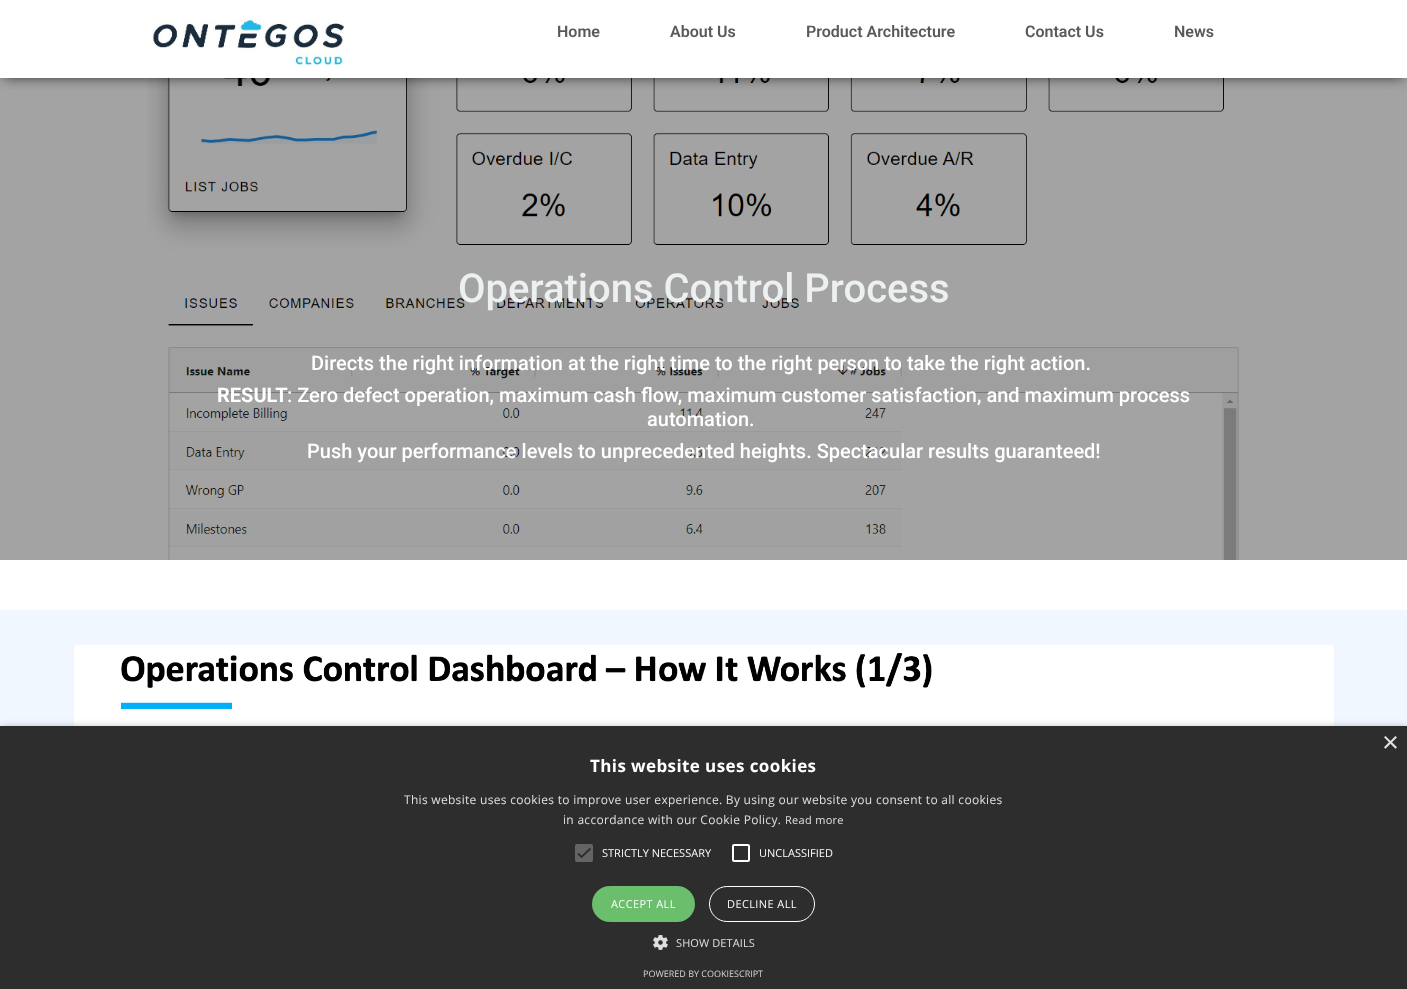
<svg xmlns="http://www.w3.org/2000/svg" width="1407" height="989">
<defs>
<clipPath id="clip1"><rect x="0" y="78" width="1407" height="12"/></clipPath>
</defs>
<rect width="100%" height="100%" fill="#fff"/>
<rect y="78" width="1407" height="482" fill="#a3a3a3"/>
<image x="147" y="78" width="1092" height="482" href="media/2.png"/>
<g clip-path="url(#clip1)">
<rect x="4" y="7" width="1399" height="70" fill="#000000bf" filter="blur(6.5px)"/>
</g>
<image x="152" y="19" width="194" height="47" href="media/1.png"/>
<text x="557" y="37" style="font-family:Roboto;font-size:16px;font-weight:600;fill:#595959">Home</text>
<text x="670" y="37" style="font-family:Roboto;font-size:16px;font-weight:600;fill:#595959">About Us</text>
<text x="806" y="37" style="font-family:Roboto;font-size:16px;font-weight:600;fill:#595959">Product Architecture</text>
<text x="1025" y="37" style="font-family:Roboto;font-size:16px;font-weight:600;fill:#595959">Contact Us</text>
<text x="1174" y="37" style="font-family:Roboto;font-size:16px;font-weight:600;fill:#595959">News</text>
<text x="458" y="302" style="font-family:Roboto;font-size:40px;font-weight:500;fill:#ecf0f1">Operations Control Process</text>
<text x="311" y="370" style="font-family:Roboto;font-size:20px;font-weight:500;fill:#fff">Directs the right information at the right time to the right person to take the right action.</text>
<text x="217" y="402" style="font-family:Roboto;font-size:20px;font-weight:bold;fill:#fff">RESULT</text>
<text x="287" y="402" style="font-family:Roboto;font-size:20px;font-weight:500;fill:#fff">: Zero defect operation, maximum cash flow, maximum customer satisfaction, and maximum process</text>
<text x="647" y="426" style="font-family:Roboto;font-size:20px;font-weight:500;fill:#fff">automation.</text>
<text x="307" y="458" style="font-family:Roboto;font-size:20px;font-weight:500;fill:#fff">Push your performance levels to unprecedented heights. Spectacular results guaranteed!</text>
<rect y="610" width="1407" height="116" fill="#f0f7fe"/>
<image x="74" y="645" width="1260" height="81" href="media/3.png"/>
<rect x="1" y="728" width="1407" height="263" fill="#00000059" filter="blur(4px)"/>
<rect y="726" width="1407" height="263" fill="#2d2d2d"/>
<text x="1382" y="752" style="font-family:Liberation Sans;font-size:29px;fill:#e0e0e0">×</text>
<text x="590" y="772" style="font-family:Open Sans;font-size:17px;font-weight:bold;letter-spacing:0.4px;fill:#fff">This website uses cookies</text>
<text x="404" y="804" style="font-family:Open Sans;font-size:12px;letter-spacing:0.3px;fill:#e0e0e0">This website uses cookies to improve user experience. By using our website you consent to all cookies</text>
<text x="563" y="824" style="font-family:Open Sans;font-size:12px;letter-spacing:0.3px;fill:#e0e0e0">in accordance with our Cookie Policy.</text>
<text x="785" y="824" style="font-family:Open Sans;font-size:11px;letter-spacing:0.3px;fill:#e0e0e0">Read more</text>
<rect x="575" y="844" width="18" height="18" rx="2" fill="#646464"/>
<path d="M578 853.5l3.5 3.5l9-8.5" fill="none" stroke="#2d2d2d" stroke-width="1.8"/>
<text x="602" y="857" style="font-family:Open Sans;font-size:11px;fill:#fff">STRICTLY NECESSARY</text>
<rect x="733" y="845" width="16" height="16" rx="1" fill="none" stroke="#fff" stroke-width="2"/>
<text x="759" y="857" style="font-family:Open Sans;font-size:11px;fill:#fff">UNCLASSIFIED</text>
<rect x="592" y="886" width="103" height="36" rx="18" fill="#6bbe6b"/>
<text x="611" y="908" style="font-family:Open Sans;font-size:11px;letter-spacing:0.4px;fill:#fff">ACCEPT ALL</text>
<rect x="709.5" y="886.5" width="105" height="35" rx="17.5" fill="none" stroke="#fff"/>
<text x="727" y="908" style="font-family:Open Sans;font-size:11px;letter-spacing:0.4px;fill:#fff">DECLINE ALL</text>
<image x="653" y="935" width="15" height="15" href="media/4.png"/>
<text x="676" y="947" style="font-family:Open Sans;font-size:11px;letter-spacing:0.1px;fill:#e0e0e0">SHOW DETAILS</text>
<text x="643" y="977" style="font-family:Open Sans;font-size:9px;fill:#d5d5d5">POWERED BY COOKIESCRIPT</text>
</svg>
